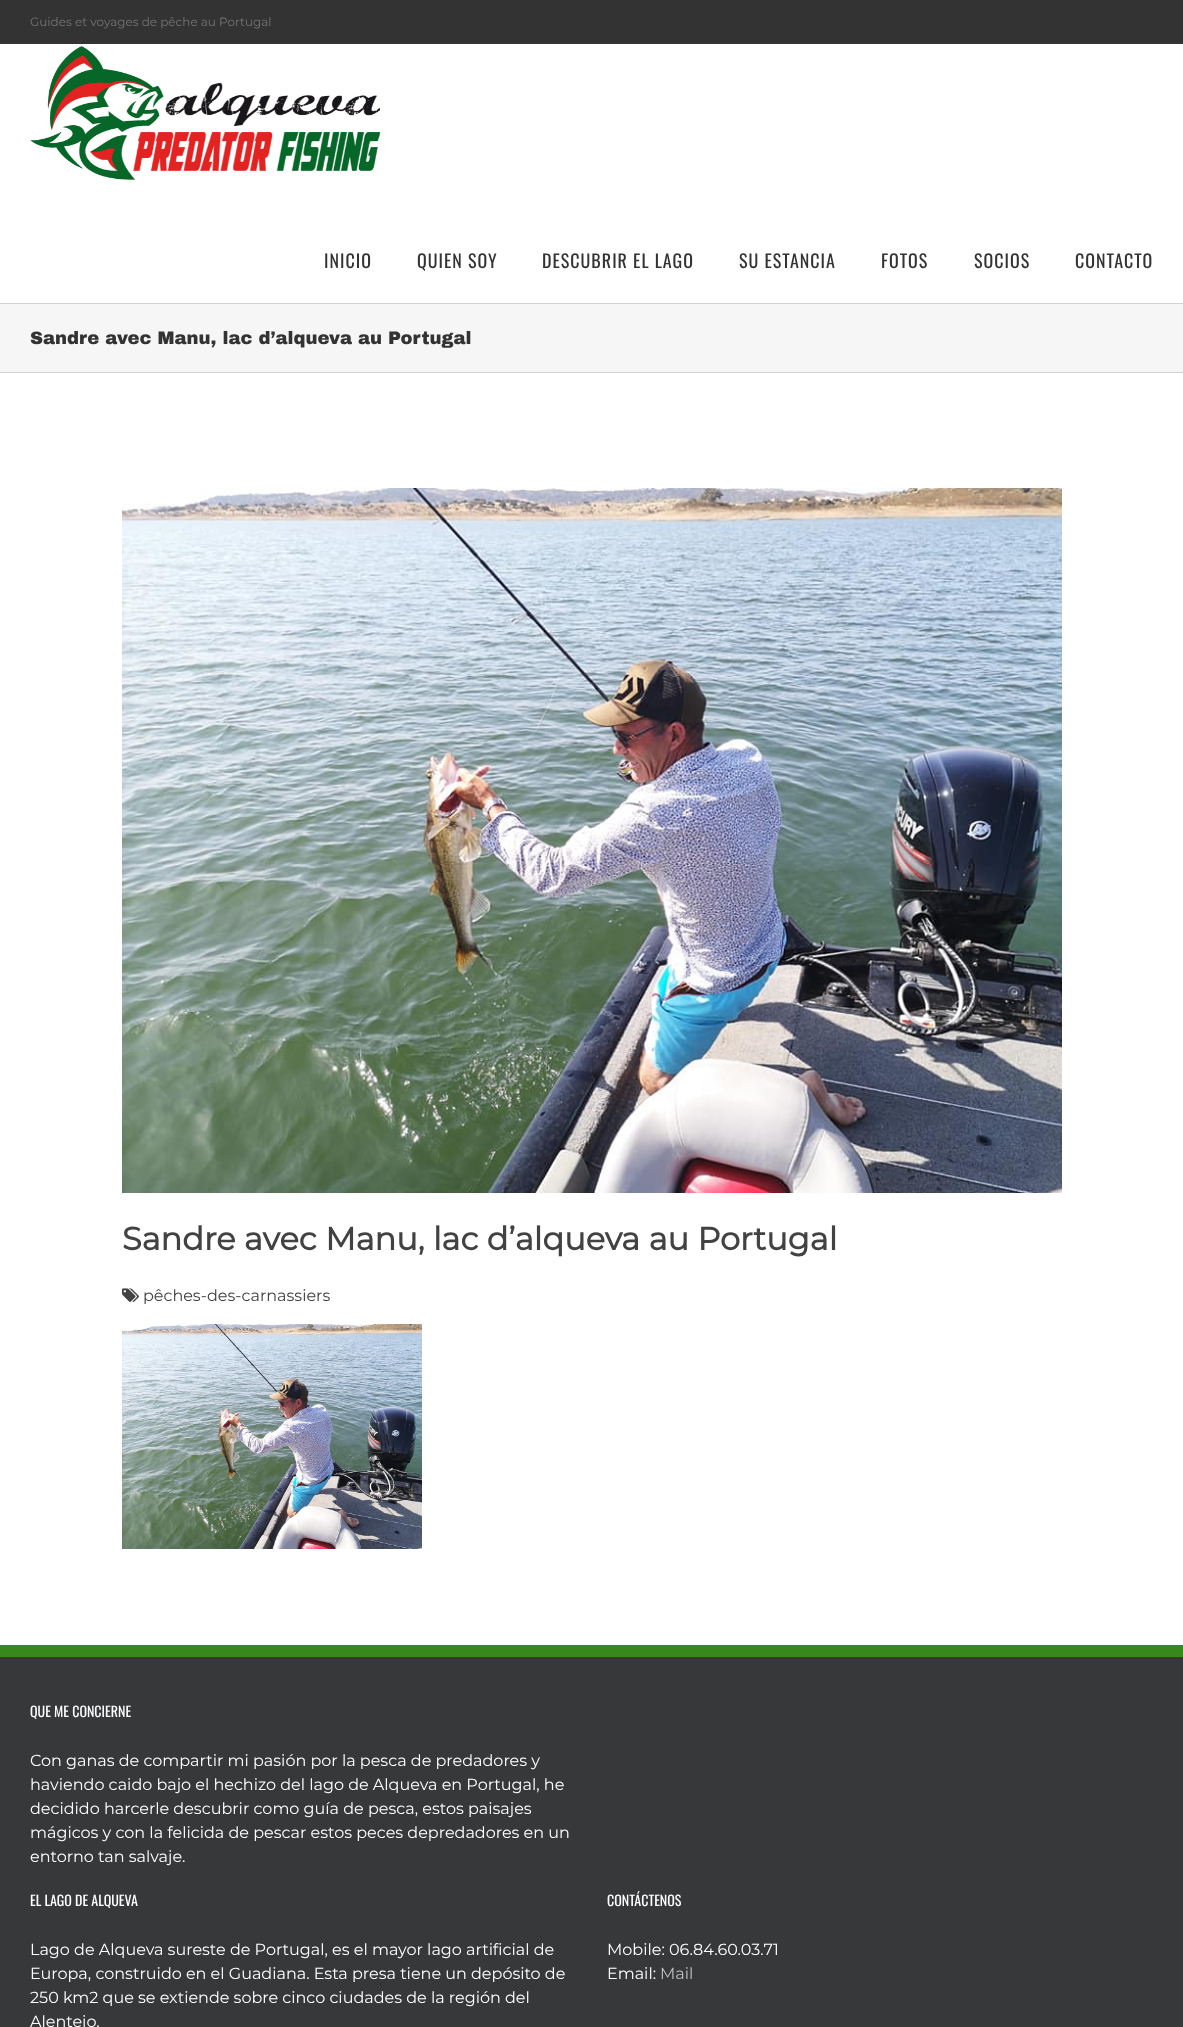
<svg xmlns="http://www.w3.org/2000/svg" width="1183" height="2027">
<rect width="100%" height="100%" fill="#fff"/>
<rect width="1183" height="44" fill="#333"/>
<text x="30" y="26" style="font-family:Montserrat;font-size:12px;font-weight:100;fill:#747474">Guides et voyages de pêche au Portugal</text>
<image x="30" y="46" width="350" height="134" href="media/1.png"/>
<text x="324" y="268" style="font-family:Oswald;font-size:18px;letter-spacing:1px;fill:#333">INICIO</text>
<text x="417" y="268" style="font-family:Oswald;font-size:18px;letter-spacing:1px;fill:#333">QUIEN SOY</text>
<text x="542" y="268" style="font-family:Oswald;font-size:18px;letter-spacing:1px;fill:#333">DESCUBRIR EL LAGO</text>
<text x="739" y="268" style="font-family:Oswald;font-size:18px;letter-spacing:1px;fill:#333">SU ESTANCIA</text>
<text x="881" y="268" style="font-family:Oswald;font-size:18px;letter-spacing:1px;fill:#333">FOTOS</text>
<text x="974" y="268" style="font-family:Oswald;font-size:18px;letter-spacing:1px;fill:#333">SOCIOS</text>
<text x="1075" y="268" style="font-family:Oswald;font-size:18px;letter-spacing:1px;fill:#333">CONTACTO</text>
<rect y="304" width="1183" height="68" fill="#f6f6f6"/>
<rect y="303" width="1183" height="1" fill="#d2d3d4"/>
<rect y="372" width="1183" height="1" fill="#d2d3d4"/>
<text x="30" y="344" style="font-family:Archivo Black;font-size:18px;font-weight:900;fill:#333">Sandre avec Manu, lac d’alqueva au Portugal</text>
<image x="122" y="488" width="940" height="705" href="media/2.png"/>
<text x="122" y="1250" style="font-family:Montserrat;font-size:32px;font-weight:bold;fill:#424242">Sandre avec Manu, lac d’alqueva au Portugal</text>
<image x="122" y="1288" width="17" height="14" href="media/3.png"/>
<text x="143" y="1301" style="font-family:Montserrat;font-size:16px;font-weight:100;fill:#424242">pêches-des-carnassiers</text>
<image x="122" y="1324" width="300" height="225" href="media/4.png"/>
<rect y="1657" width="1183" height="370" fill="#363839"/>
<rect y="1645" width="1183" height="12" fill="#39871d"/>
<text x="30" y="1717" style="font-family:Oswald;font-size:14px;fill:#fff">QUE ME CONCIERNE</text>
<text x="30" y="1766" style="font-family:Montserrat;font-size:16px;font-weight:100;fill:#fff">Con ganas de compartir mi pasión por la pesca de predadores y</text>
<text x="30" y="1790" style="font-family:Montserrat;font-size:16px;font-weight:100;fill:#fff">haviendo caido bajo el hechizo del lago de Alqueva en Portugal, he</text>
<text x="30" y="1814" style="font-family:Montserrat;font-size:16px;font-weight:100;fill:#fff">decidido harcerle descubrir como guía de pesca, estos paisajes</text>
<text x="30" y="1838" style="font-family:Montserrat;font-size:16px;font-weight:100;fill:#fff">mágicos y con la felicida de pescar estos peces depredadores en un</text>
<text x="30" y="1862" style="font-family:Montserrat;font-size:16px;font-weight:100;fill:#fff">entorno tan salvaje.</text>
<text x="30" y="1906" style="font-family:Oswald;font-size:14px;fill:#fff">EL LAGO DE ALQUEVA</text>
<text x="30" y="1955" style="font-family:Montserrat;font-size:16px;font-weight:100;fill:#fff">Lago de Alqueva sureste de Portugal, es el mayor lago artificial de</text>
<text x="30" y="1979" style="font-family:Montserrat;font-size:16px;font-weight:100;fill:#fff">Europa, construido en el Guadiana. Esta presa tiene un depósito de</text>
<text x="30" y="2003" style="font-family:Montserrat;font-size:16px;font-weight:100;fill:#fff">250 km2 que se extiende sobre cinco ciudades de la región del</text>
<text x="30" y="2027" style="font-family:Montserrat;font-size:16px;font-weight:100;fill:#fff">Alentejo.</text>
<text x="607" y="1906" style="font-family:Oswald;font-size:14px;fill:#fff">CONTÁCTENOS</text>
<text x="607" y="1955" style="font-family:Montserrat;font-size:16px;font-weight:100;fill:#fff">Mobile: 06.84.60.03.71</text>
<text x="607" y="1979" style="font-family:Montserrat;font-size:16px;font-weight:100;fill:#fff">Email:</text>
<text x="660" y="1979" style="font-family:Montserrat;font-size:16px;font-weight:100;fill:#bfbfbf">Mail</text>
</svg>
